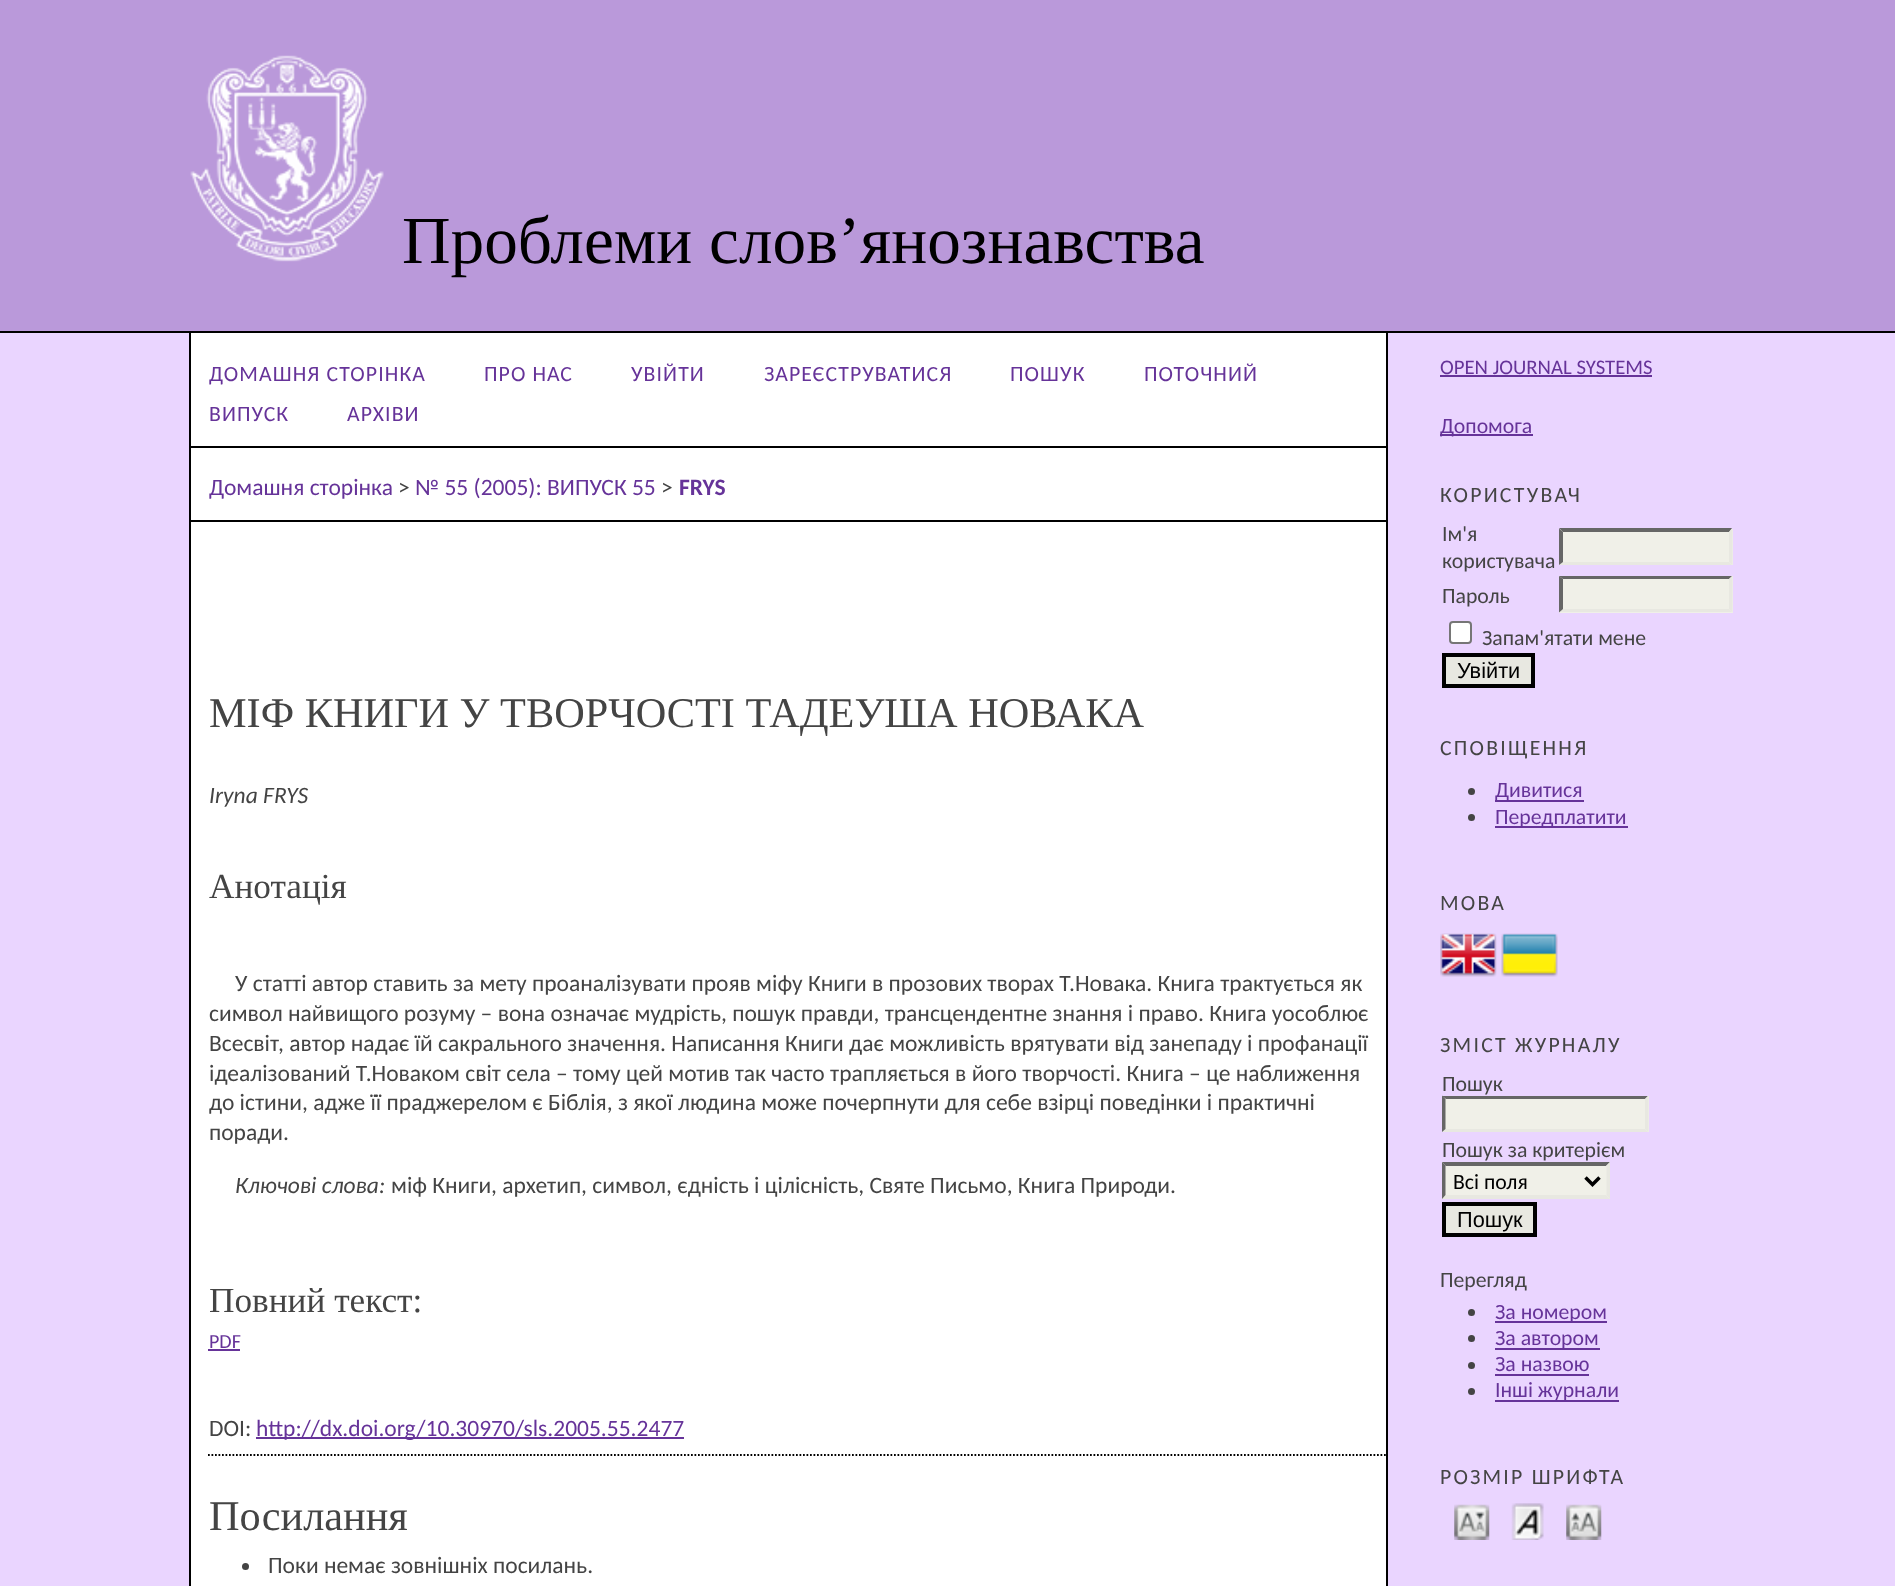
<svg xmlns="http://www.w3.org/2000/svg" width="1895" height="1586">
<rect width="100%" height="100%" fill="#ead5ff"/>
<rect width="1895" height="331" fill="#ba99da"/>
<rect y="331" width="1895" height="2" fill="#000"/>
<image x="190" y="55" width="194" height="207" href="media/1.png"/>
<text x="402" y="263" style="font-family:Liberation Serif;font-size:67.25px;fill:#000">Проблеми слов’янознавства</text>
<rect x="191" y="333" width="1195" height="1253" fill="#fff"/>
<rect x="1386" y="333" width="2" height="1253" fill="#000"/>
<rect x="189" y="333" width="2" height="1253" fill="#000"/>
<rect x="191" y="446" width="1195" height="2" fill="#000"/>
<text x="209" y="381" style="font-family:Carlito;font-size:21.75px;letter-spacing:1.1px;fill:#639">ДОМАШНЯ СТОРІНКА</text>
<text x="484" y="381" style="font-family:Carlito;font-size:21.75px;letter-spacing:1.1px;fill:#639">ПРО НАС</text>
<text x="631" y="381" style="font-family:Carlito;font-size:21.75px;letter-spacing:1.1px;fill:#639">УВІЙТИ</text>
<text x="764" y="381" style="font-family:Carlito;font-size:21.75px;letter-spacing:1.1px;fill:#639">ЗАРЕЄСТРУВАТИСЯ</text>
<text x="1010" y="381" style="font-family:Carlito;font-size:21.75px;letter-spacing:1.1px;fill:#639">ПОШУК</text>
<text x="1144" y="381" style="font-family:Carlito;font-size:21.75px;letter-spacing:1.1px;fill:#639">ПОТОЧНИЙ</text>
<text x="209" y="421" style="font-family:Carlito;font-size:21.75px;letter-spacing:1.1px;fill:#639">ВИПУСК</text>
<text x="347" y="421" style="font-family:Carlito;font-size:21.75px;letter-spacing:1.1px;fill:#639">АРХІВИ</text>
<rect x="191" y="520" width="1195" height="2" fill="#000"/>
<text x="209" y="495" style="font-family:Carlito;font-size:23.5px;fill:#639">Домашня сторінка</text>
<text x="398" y="495" style="font-family:Carlito;font-size:23.5px;fill:#444">&gt;</text>
<text x="415" y="495" style="font-family:Carlito;font-size:23.5px;fill:#639">№ 55 (2005): ВИПУСК 55</text>
<text x="661" y="495" style="font-family:Carlito;font-size:23.5px;fill:#444">&gt;</text>
<text x="679" y="495" style="font-family:Carlito;font-size:23.5px;font-weight:bold;fill:#639">FRYS</text>
<text x="209" y="727" style="font-family:Liberation Serif;font-size:42.3px;fill:#444">МІФ КНИГИ У ТВОРЧОСТІ ТАДЕУША НОВАКА</text>
<text x="209" y="803" style="font-family:Carlito;font-size:23.5px;font-style:italic;fill:#444">Iryna FRYS</text>
<text x="209" y="898" style="font-family:Liberation Serif;font-size:35.25px;fill:#444">Анотація</text>
<text x="235" y="991" style="font-family:Carlito;font-size:23.5px;fill:#444">У статті автор ставить за мету проаналізувати прояв міфу Книги в прозових творах Т.Новака. Книга трактується як</text>
<text x="209" y="1021" style="font-family:Carlito;font-size:23.5px;fill:#444">символ найвищого розуму – вона означає мудрість, пошук правди, трансцендентне знання і право. Книга уособлює</text>
<text x="209" y="1051" style="font-family:Carlito;font-size:23.5px;fill:#444">Всесвіт, автор надає їй сакрального значення. Написання Книги дає можливість врятувати від занепаду і профанації</text>
<text x="209" y="1081" style="font-family:Carlito;font-size:23.5px;fill:#444">ідеалізований Т.Новаком світ села – тому цей мотив так часто трапляється в його творчості. Книга – це наближення</text>
<text x="209" y="1110" style="font-family:Carlito;font-size:23.5px;fill:#444">до істини, адже її праджерелом є Біблія, з якої людина може почерпнути для себе взірці поведінки і практичні</text>
<text x="209" y="1140" style="font-family:Carlito;font-size:23.5px;fill:#444">поради.</text>
<text x="235" y="1193" style="font-family:Carlito;font-size:23.5px;font-style:italic;fill:#444">Ключові слова:</text>
<text x="391" y="1193" style="font-family:Carlito;font-size:23.5px;fill:#444">міф Книги, архетип, символ, єдність і цілісність, Святе Письмо, Книга Природи.</text>
<text x="209" y="1312" style="font-family:Liberation Serif;font-size:35.25px;fill:#444">Повний текст:</text>
<text x="209" y="1348" style="font-family:Carlito;font-size:20px;fill:#639">PDF</text>
<rect x="208" y="1349" width="32" height="2" fill="#639"/>
<text x="209" y="1436" style="font-family:Carlito;font-size:23.5px;fill:#444">DOI:</text>
<rect x="256" y="1437" width="428" height="2" fill="#639"/>
<text x="256" y="1436" style="font-family:Carlito;font-size:23.5px;fill:#639">http://dx.doi.org/10.30970/sls.2005.55.2477</text>
<path d="M208 1455h1178" fill="none" stroke="#000" stroke-width="1.8" stroke-dasharray="1.75 1.75"/>
<text x="209" y="1530" style="font-family:Liberation Serif;font-size:42.3px;fill:#444">Посилання</text>
<circle cx="245.5" cy="1566.5" r="3.5" fill="#444"/>
<text x="268" y="1573" style="font-family:Carlito;font-size:23.5px;fill:#444">Поки немає зовнішніх посилань.</text>
<text x="1440" y="374" style="font-family:Carlito;font-size:20.75px;fill:#639">OPEN JOURNAL SYSTEMS</text>
<rect x="1440" y="375" width="212" height="2" fill="#639"/>
<rect x="1440" y="434" width="93" height="2" fill="#639"/>
<text x="1440" y="433" style="font-family:Carlito;font-size:21.75px;fill:#639">Допомога</text>
<text x="1440" y="502" style="font-family:Carlito;font-size:21.75px;letter-spacing:2.25px;fill:#444">КОРИСТУВАЧ</text>
<text x="1442" y="541" style="font-family:Carlito;font-size:21.75px;fill:#444">Ім'я</text>
<text x="1442" y="568" style="font-family:Carlito;font-size:21.75px;fill:#444">користувача</text>
<rect x="1559" y="529" width="174" height="36" fill="#f0f0e8"/>
<path d="M1559 528h173l-3 4h-166z" fill="#666"/>
<path d="M1732.5 528.5v36.5l-3.5-3v-30z" fill="#e8e8e1"/>
<path d="M1732 565h-173l4-3h166z" fill="#e8e8e1"/>
<path d="M1559 565v-36.5l4 3.5v30z" fill="#666"/>
<text x="1442" y="603" style="font-family:Carlito;font-size:21.75px;fill:#444">Пароль</text>
<rect x="1559" y="576" width="174" height="37" fill="#f0f0e8"/>
<path d="M1559 576h173l-3 3h-166z" fill="#666"/>
<path d="M1732.5 576v36.5l-3.5-3.5v-30z" fill="#e8e8e1"/>
<path d="M1732 612h-173l4-3h166z" fill="#e8e8e1"/>
<path d="M1559 612.5v-36.5l4 3v30z" fill="#666"/>
<rect x="1450" y="622" width="21" height="21" rx="3" fill="#fff" stroke="#767676" stroke-width="2"/>
<text x="1482" y="645" style="font-family:Carlito;font-size:21.75px;fill:#444">Запам'ятати мене</text>
<rect x="1444" y="655" width="89" height="31" fill="#e8e8e1" stroke="#000" stroke-width="4"/>
<text x="1457" y="678" style="font-family:Liberation Sans;font-size:21.75px;fill:#000">Увійти</text>
<text x="1440" y="755" style="font-family:Carlito;font-size:21.75px;letter-spacing:2.25px;fill:#444">СПОВІЩЕННЯ</text>
<circle cx="1471.5" cy="791.5" r="3.5" fill="#444"/>
<rect x="1495" y="800" width="89" height="2" fill="#639"/>
<text x="1495" y="797" style="font-family:Carlito;font-size:21.75px;fill:#639">Дивитися</text>
<circle cx="1471.5" cy="817.5" r="3.5" fill="#444"/>
<rect x="1495" y="826" width="133" height="2" fill="#639"/>
<text x="1495" y="824" style="font-family:Carlito;font-size:21.75px;fill:#639">Передплатити</text>
<text x="1440" y="910" style="font-family:Carlito;font-size:21.75px;letter-spacing:2.25px;fill:#444">МОВА</text>
<image x="1440" y="933" width="57" height="44" href="media/2.png"/>
<image x="1501" y="933" width="57" height="44" href="media/3.png"/>
<text x="1440" y="1052" style="font-family:Carlito;font-size:21.75px;letter-spacing:2.25px;fill:#444">ЗМІСТ ЖУРНАЛУ</text>
<text x="1442" y="1091" style="font-family:Carlito;font-size:21.75px;fill:#444">Пошук</text>
<rect x="1442" y="1096" width="207" height="36" fill="#f0f0e8"/>
<path d="M1442 1096h206l-3 3h-199z" fill="#666"/>
<path d="M1648.5 1095.5v36.5l-3.5-3v-30z" fill="#e8e8e1"/>
<path d="M1648 1132h-206l4-3h199z" fill="#e8e8e1"/>
<path d="M1442 1132v-36.5l3.5 3.5v30z" fill="#666"/>
<text x="1442" y="1157" style="font-family:Carlito;font-size:21.75px;fill:#444">Пошук за критерієм</text>
<rect x="1442" y="1162" width="168" height="37" fill="#f0f0e8"/>
<path d="M1442 1162h168l-4 4h-160z" fill="#666"/>
<path d="M1610 1162v37l-3.5-4v-29.5z" fill="#e8e8e1"/>
<path d="M1610 1199h-168l4-4h160z" fill="#e8e8e1"/>
<path d="M1442 1199v-37l3.5 3.5v29.5z" fill="#666"/>
<path d="M1585.5 1177.5l7 7l7-7" fill="none" stroke="#000" stroke-width="3.5"/>
<text x="1453" y="1189" style="font-family:Carlito;font-size:21.75px;fill:#000">Всі поля</text>
<rect x="1444" y="1204" width="91" height="31" fill="#e8e8e1" stroke="#000" stroke-width="4"/>
<text x="1457" y="1227" style="font-family:Liberation Sans;font-size:21.75px;fill:#000">Пошук</text>
<text x="1440" y="1287" style="font-family:Carlito;font-size:21.75px;fill:#444">Перегляд</text>
<circle cx="1471.5" cy="1312.5" r="3.5" fill="#444"/>
<rect x="1495" y="1321" width="112" height="2" fill="#639"/>
<text x="1495" y="1319" style="font-family:Carlito;font-size:21.75px;fill:#639">За номером</text>
<circle cx="1471.5" cy="1338.5" r="3.5" fill="#444"/>
<rect x="1495" y="1348" width="105" height="2" fill="#639"/>
<text x="1495" y="1345" style="font-family:Carlito;font-size:21.75px;fill:#639">За автором</text>
<circle cx="1471.5" cy="1365.5" r="3.5" fill="#444"/>
<text x="1495" y="1371" style="font-family:Carlito;font-size:21.75px;fill:#639">За назвою</text>
<rect x="1495" y="1374" width="94" height="2" fill="#639"/>
<circle cx="1471.5" cy="1391.5" r="3.5" fill="#444"/>
<rect x="1495" y="1400" width="124" height="2" fill="#639"/>
<text x="1495" y="1397" style="font-family:Carlito;font-size:21.75px;fill:#639">Інші журнали</text>
<text x="1440" y="1484" style="font-family:Carlito;font-size:21.75px;letter-spacing:2.25px;fill:#444">РОЗМІР ШРИФТА</text>
<image x="1454" y="1504" width="36" height="36" href="media/4.png"/>
<image x="1511" y="1503" width="33" height="37" href="media/5.png"/>
<image x="1566" y="1504" width="36" height="36" href="media/6.png"/>
</svg>
